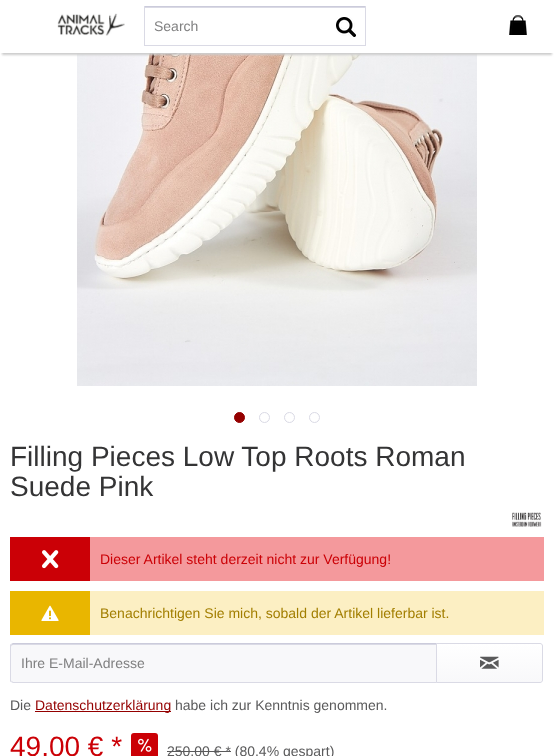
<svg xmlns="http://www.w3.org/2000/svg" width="554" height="756">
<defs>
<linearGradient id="g1" gradientUnits="userSpaceOnUse" x1="490" y1="644" x2="490" y2="682"><stop offset="0" stop-color="#fff"/><stop offset="1" stop-color="#f8f8fa"/></linearGradient>
</defs>
<rect width="100%" height="100%" fill="#fff"/>
<image x="77" y="53" width="400" height="333" href="media/4.png"/>
<rect x="2" y="6" width="550" height="49" fill="#ccc" filter="blur(1px)"/>
<rect y="4" width="554" height="49" fill="#fff"/>
<image x="57" y="13" width="68" height="23" href="media/1.png"/>
<rect x="145" y="7" width="220" height="1" fill="#dadae5"/>
<rect x="144" y="6" width="222" height="1" fill="#cbcbdb"/>
<rect x="365" y="6" width="1" height="40" fill="#dadae5"/>
<rect x="144" y="45" width="222" height="1" fill="#dadae5"/>
<rect x="144" y="6" width="1" height="40" fill="#dadae5"/>
<text x="154" y="31" style="font-family:Liberation Sans;font-size:14px;fill:#808081">Search</text>
<image x="336" y="17" width="20" height="20" href="media/2.png"/>
<image x="509" y="15" width="18" height="20" href="media/3.png"/>
<circle cx="239.5" cy="417.5" r="5" fill="#940000" stroke="#940000"/>
<circle cx="264.5" cy="417.5" r="5" fill="none" stroke="#dadae5"/>
<circle cx="289.5" cy="417.5" r="5" fill="none" stroke="#dadae5"/>
<circle cx="314.5" cy="417.5" r="5" fill="none" stroke="#dadae5"/>
<text x="10" y="466" style="font-family:Liberation Sans;font-size:28px;fill:#343435">Filling Pieces Low Top Roots Roman</text>
<text x="10" y="496" style="font-family:Liberation Sans;font-size:28px;fill:#343435">Suede Pink</text>
<image x="512" y="512" width="30" height="15" href="media/5.png"/>
<rect x="90" y="537" width="454" height="44" fill="#f4999c"/>
<rect x="10" y="537" width="80" height="44" fill="#cb0006"/>
<image x="42" y="550" width="17" height="19" href="media/6.png"/>
<text x="100" y="564" style="font-family:Liberation Sans;font-size:14px;fill:#cb0006">Dieser Artikel steht derzeit nicht zur Verfügung!</text>
<rect x="90" y="591" width="454" height="44" fill="#fcefc3"/>
<rect x="10" y="591" width="80" height="44" fill="#e9b600"/>
<image x="41" y="605" width="18" height="16" href="media/7.png"/>
<text x="100" y="618" style="font-family:Liberation Sans;font-size:14px;fill:#a27e00">Benachrichtigen Sie mich, sobald der Artikel lieferbar ist.</text>
<path d="M13 644h423v38h-423c-1 0-2-1-2-2v-34c0-1 1-2 2-2z" fill="#f8f8fa"/>
<path d="M13 645h423v-1h-423c-2 0-2 2-2 3c0-1 1-2 2-2z" fill="#dadae5"/>
<path d="M13 643l-2 1l1 1l1-1h423l1-1z" fill="#cbcbdb"/>
<path d="M437 683l-1-1h-423l-1-1l-1 1l2 1z" fill="#dadae5"/>
<path d="M10 646v34c0 1 0 2 1 2l.5-.5l-.5-1.5v-34l.5-1.5l-.5-.5c-1 0-1 1-1 2z" fill="#dadae5"/>
<text x="21" y="668" style="font-family:Liberation Sans;font-size:14px;fill:#808081">Ihre E-Mail-Adresse</text>
<path d="M437 644h103c1 0 2 1 2 2v34c0 1-1 2-2 2h-103z" fill="url(#g1)"/>
<path d="M436.5 643.5h103.5c1.5 0 2.5 1 2.5 2.5v34c0 1.5-1 2.5-2.5 2.5h-103.5z" fill="none" stroke="#dadae5"/>
<image x="480" y="656" width="19" height="13" href="media/8.png"/>
<text x="10" y="710" style="font-family:Liberation Sans;font-size:14px;fill:#5a5a5b">Die</text>
<rect x="35" y="711" width="136" height="1" fill="#940000"/>
<text x="35" y="710" style="font-family:Liberation Sans;font-size:14px;fill:#940000">Datenschutzerklärung</text>
<text x="175" y="710" style="font-family:Liberation Sans;font-size:14px;fill:#5a5a5b">habe ich zur Kenntnis genommen.</text>
<text x="10" y="756" style="font-family:Liberation Sans;font-size:28px;fill:#cb0006">49,00 € *</text>
<rect x="131" y="733" width="27" height="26" rx="3" fill="#cb0006"/>
<image x="138" y="738" width="14" height="14" href="media/9.png"/>
<text x="167" y="756" style="font-family:Liberation Sans;font-size:14px;fill:#5a5a5b">250,00 € * (80,4% gespart)</text>
<rect x="167" y="751" width="64" height="1" fill="#5a5a5b"/>
</svg>
